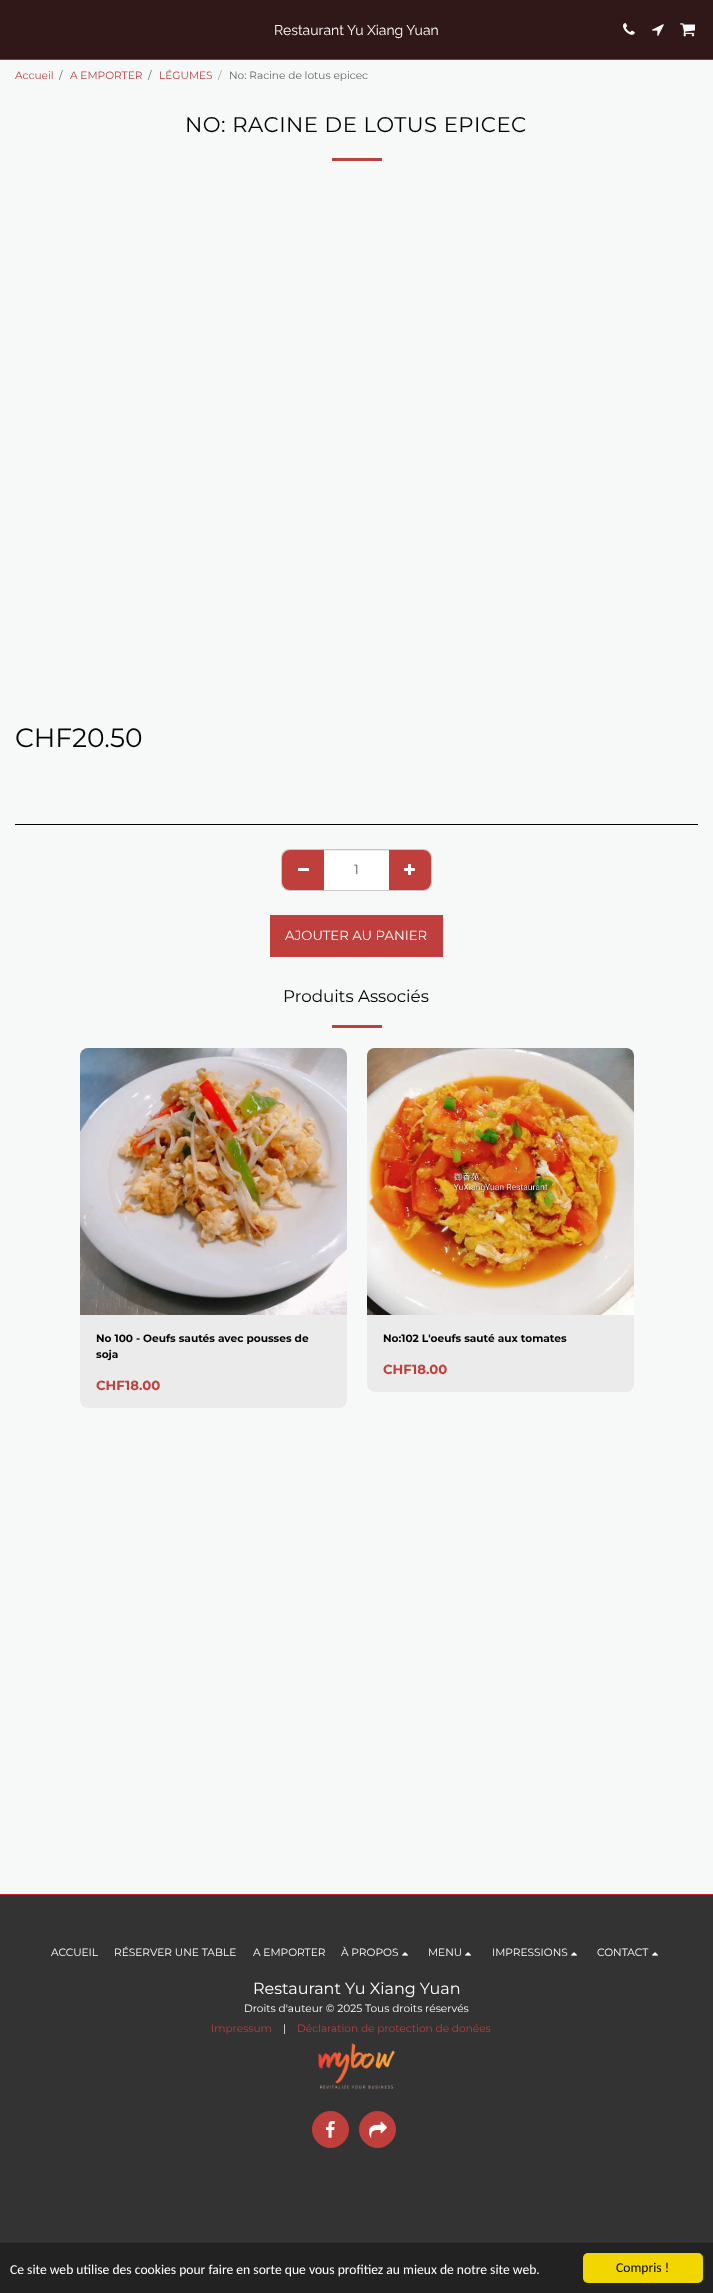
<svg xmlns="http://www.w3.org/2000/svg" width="713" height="2293">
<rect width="100%" height="100%" fill="#f7f9f8"/>
<rect width="713" height="59" fill="#301818"/>
<rect y="59" width="713" height="1" fill="#c62020"/>
<text x="274" y="35" style="font-family:Raleway;font-size:14px;fill:#fff">Restaurant Yu Xiang Yuan</text>
<image x="623" y="23" width="12" height="12" href="media/1.png"/>
<image x="652" y="24" width="12" height="12" href="media/2.png"/>
<image x="680" y="23" width="15" height="14" href="media/3.png"/>
<text x="15" y="79" style="font-family:Montserrat;font-size:10.6px;fill:#bf3f3c">Accueil</text>
<text x="59" y="79" style="font-family:Montserrat;font-size:10.6px;fill:#636463">/</text>
<text x="70" y="79" style="font-family:Montserrat;font-size:10.6px;fill:#bf3f3c">A EMPORTER</text>
<text x="148" y="79" style="font-family:Montserrat;font-size:10.6px;fill:#636463">/</text>
<text x="159" y="79" style="font-family:Montserrat;font-size:10.6px;fill:#bf3f3c">LÉGUMES</text>
<text x="218" y="79" style="font-family:Montserrat;font-size:10.6px;fill:#9e9f9f">/</text>
<text x="229" y="79" style="font-family:Montserrat;font-size:10.6px;fill:#636463">No: Racine de lotus epicec</text>
<text x="185" y="132" style="font-family:Montserrat;font-size:21.25px;letter-spacing:0.5px;fill:#000">NO: RACINE DE LOTUS EPICEC</text>
<rect x="332" y="158" width="50" height="3" fill="#bf3f3c"/>
<text x="15" y="747" style="font-family:Montserrat;font-size:26.5px;fill:#000">CHF20.50</text>
<rect x="15" y="824" width="683" height="1" fill="#000"/>
<rect x="281.5" y="849.5" width="150" height="41" rx="7.5" fill="none" stroke="#c6c7c6"/>
<path d="M290 850h35v40h-35c-4.5 0-8-3.5-8-8v-24c0-4.5 3.5-8 8-8z" fill="#bf3f3c"/>
<rect x="298" y="868" width="11" height="3" fill="#fff"/>
<path d="M388 850h35c4.5 0 8 3.5 8 8v24c0 4.5-3.5 8-8 8h-35z" fill="#bf3f3c"/>
<rect x="324" y="851" width="65" height="39" fill="#fff"/>
<rect x="324" y="850" width="65" height="1" fill="#ececec"/>
<text x="354" y="874" style="font-family:Montserrat;font-size:13.25px;fill:#555">1</text>
<image x="404" y="864" width="11" height="11" href="media/4.png"/>
<rect x="270" y="915" width="173" height="42" fill="#bf3f3c"/>
<text x="285" y="940" style="font-family:Montserrat;font-size:13.25px;fill:#fff">AJOUTER AU PANIER</text>
<text x="283" y="1002" style="font-family:Montserrat;font-size:16.75px;fill:#000">Produits Associés</text>
<rect x="332" y="1025" width="50" height="3" fill="#bf3f3c"/>
<rect x="80" y="1048" width="267" height="360" rx="8" fill="#ebebeb"/>
<image x="80" y="1048" width="267" height="267" href="media/5.png"/>
<text x="96" y="1342" style="font-family:Montserrat;font-size:10.6px;font-weight:bold;fill:#000">No 100 - Oeufs sautés avec pousses de</text>
<text x="96" y="1358" style="font-family:Montserrat;font-size:10.6px;font-weight:bold;fill:#000">soja</text>
<text x="96" y="1390" style="font-family:Montserrat;font-size:13.25px;font-weight:bold;fill:#bf3f3c">CHF18.00</text>
<rect x="367" y="1048" width="267" height="344" rx="8" fill="#ebebeb"/>
<image x="367" y="1048" width="267" height="267" href="media/6.png"/>
<text x="383" y="1342" style="font-family:Montserrat;font-size:10.6px;font-weight:bold;fill:#000">No:102 L'oeufs sauté aux tomates</text>
<text x="383" y="1374" style="font-family:Montserrat;font-size:13.25px;font-weight:bold;fill:#bf3f3c">CHF18.00</text>
<rect y="1895" width="713" height="348" fill="#333"/>
<rect y="1894" width="713" height="1" fill="#c62020"/>
<text x="51" y="1956" style="font-family:Montserrat;font-size:10.6px;fill:#fff">ACCUEIL</text>
<text x="114" y="1956" style="font-family:Montserrat;font-size:10.6px;fill:#fff">RÉSERVER UNE TABLE</text>
<text x="253" y="1956" style="font-family:Montserrat;font-size:10.6px;fill:#fff">A EMPORTER</text>
<text x="341" y="1956" style="font-family:Montserrat;font-size:10.6px;fill:#fff">À PROPOS</text>
<image x="402" y="1952" width="6" height="4" href="media/7.png"/>
<text x="428" y="1956" style="font-family:Montserrat;font-size:10.6px;fill:#fff">MENU</text>
<image x="465" y="1952" width="6" height="4" href="media/7.png"/>
<text x="492" y="1956" style="font-family:Montserrat;font-size:10.6px;fill:#fff">IMPRESSIONS</text>
<image x="571" y="1952" width="6" height="4" href="media/7.png"/>
<text x="597" y="1956" style="font-family:Montserrat;font-size:10.6px;fill:#fff">CONTACT</text>
<image x="652" y="1952" width="6" height="4" href="media/7.png"/>
<text x="253" y="1994" style="font-family:Montserrat;font-size:16px;fill:#fff">Restaurant Yu Xiang Yuan</text>
<text x="244" y="2012" style="font-family:Montserrat;font-size:10.6px;fill:#fff">Droits d'auteur © 2025 Tous droits réservés</text>
<text x="211" y="2032" style="font-family:Montserrat;font-size:10.6px;fill:#bf3f3c">Impressum</text>
<text x="283" y="2032" style="font-family:Montserrat;font-size:10.6px;fill:#fff">|</text>
<text x="297" y="2032" style="font-family:Montserrat;font-size:10.6px;fill:#bf3f3c">Déclaration de protection de donées</text>
<image x="318" y="2043" width="77" height="46" href="media/8.png"/>
<circle cx="330.5" cy="2129.5" r="18" fill="#bf3f3c" stroke="#bf3f3c"/>
<image x="325" y="2121" width="10" height="17" href="media/9.png"/>
<circle cx="377.5" cy="2129.5" r="18" fill="#bf3f3c" stroke="#bf3f3c"/>
<image x="369" y="2121" width="18" height="17" href="media/10.png"/>
<rect y="2243" width="713" height="50" fill="#222"/>
<text x="10" y="2274" style="font-family:Carlito;font-size:13.6px;fill:#fff">Ce site web utilise des cookies pour faire en sorte que vous profitiez au mieux de notre site web.</text>
<rect x="583" y="2253" width="120" height="30" rx="5" fill="#f1d600"/>
<text x="616" y="2272" style="font-family:Carlito;font-size:13.6px;fill:#000">Compris !</text>
</svg>
